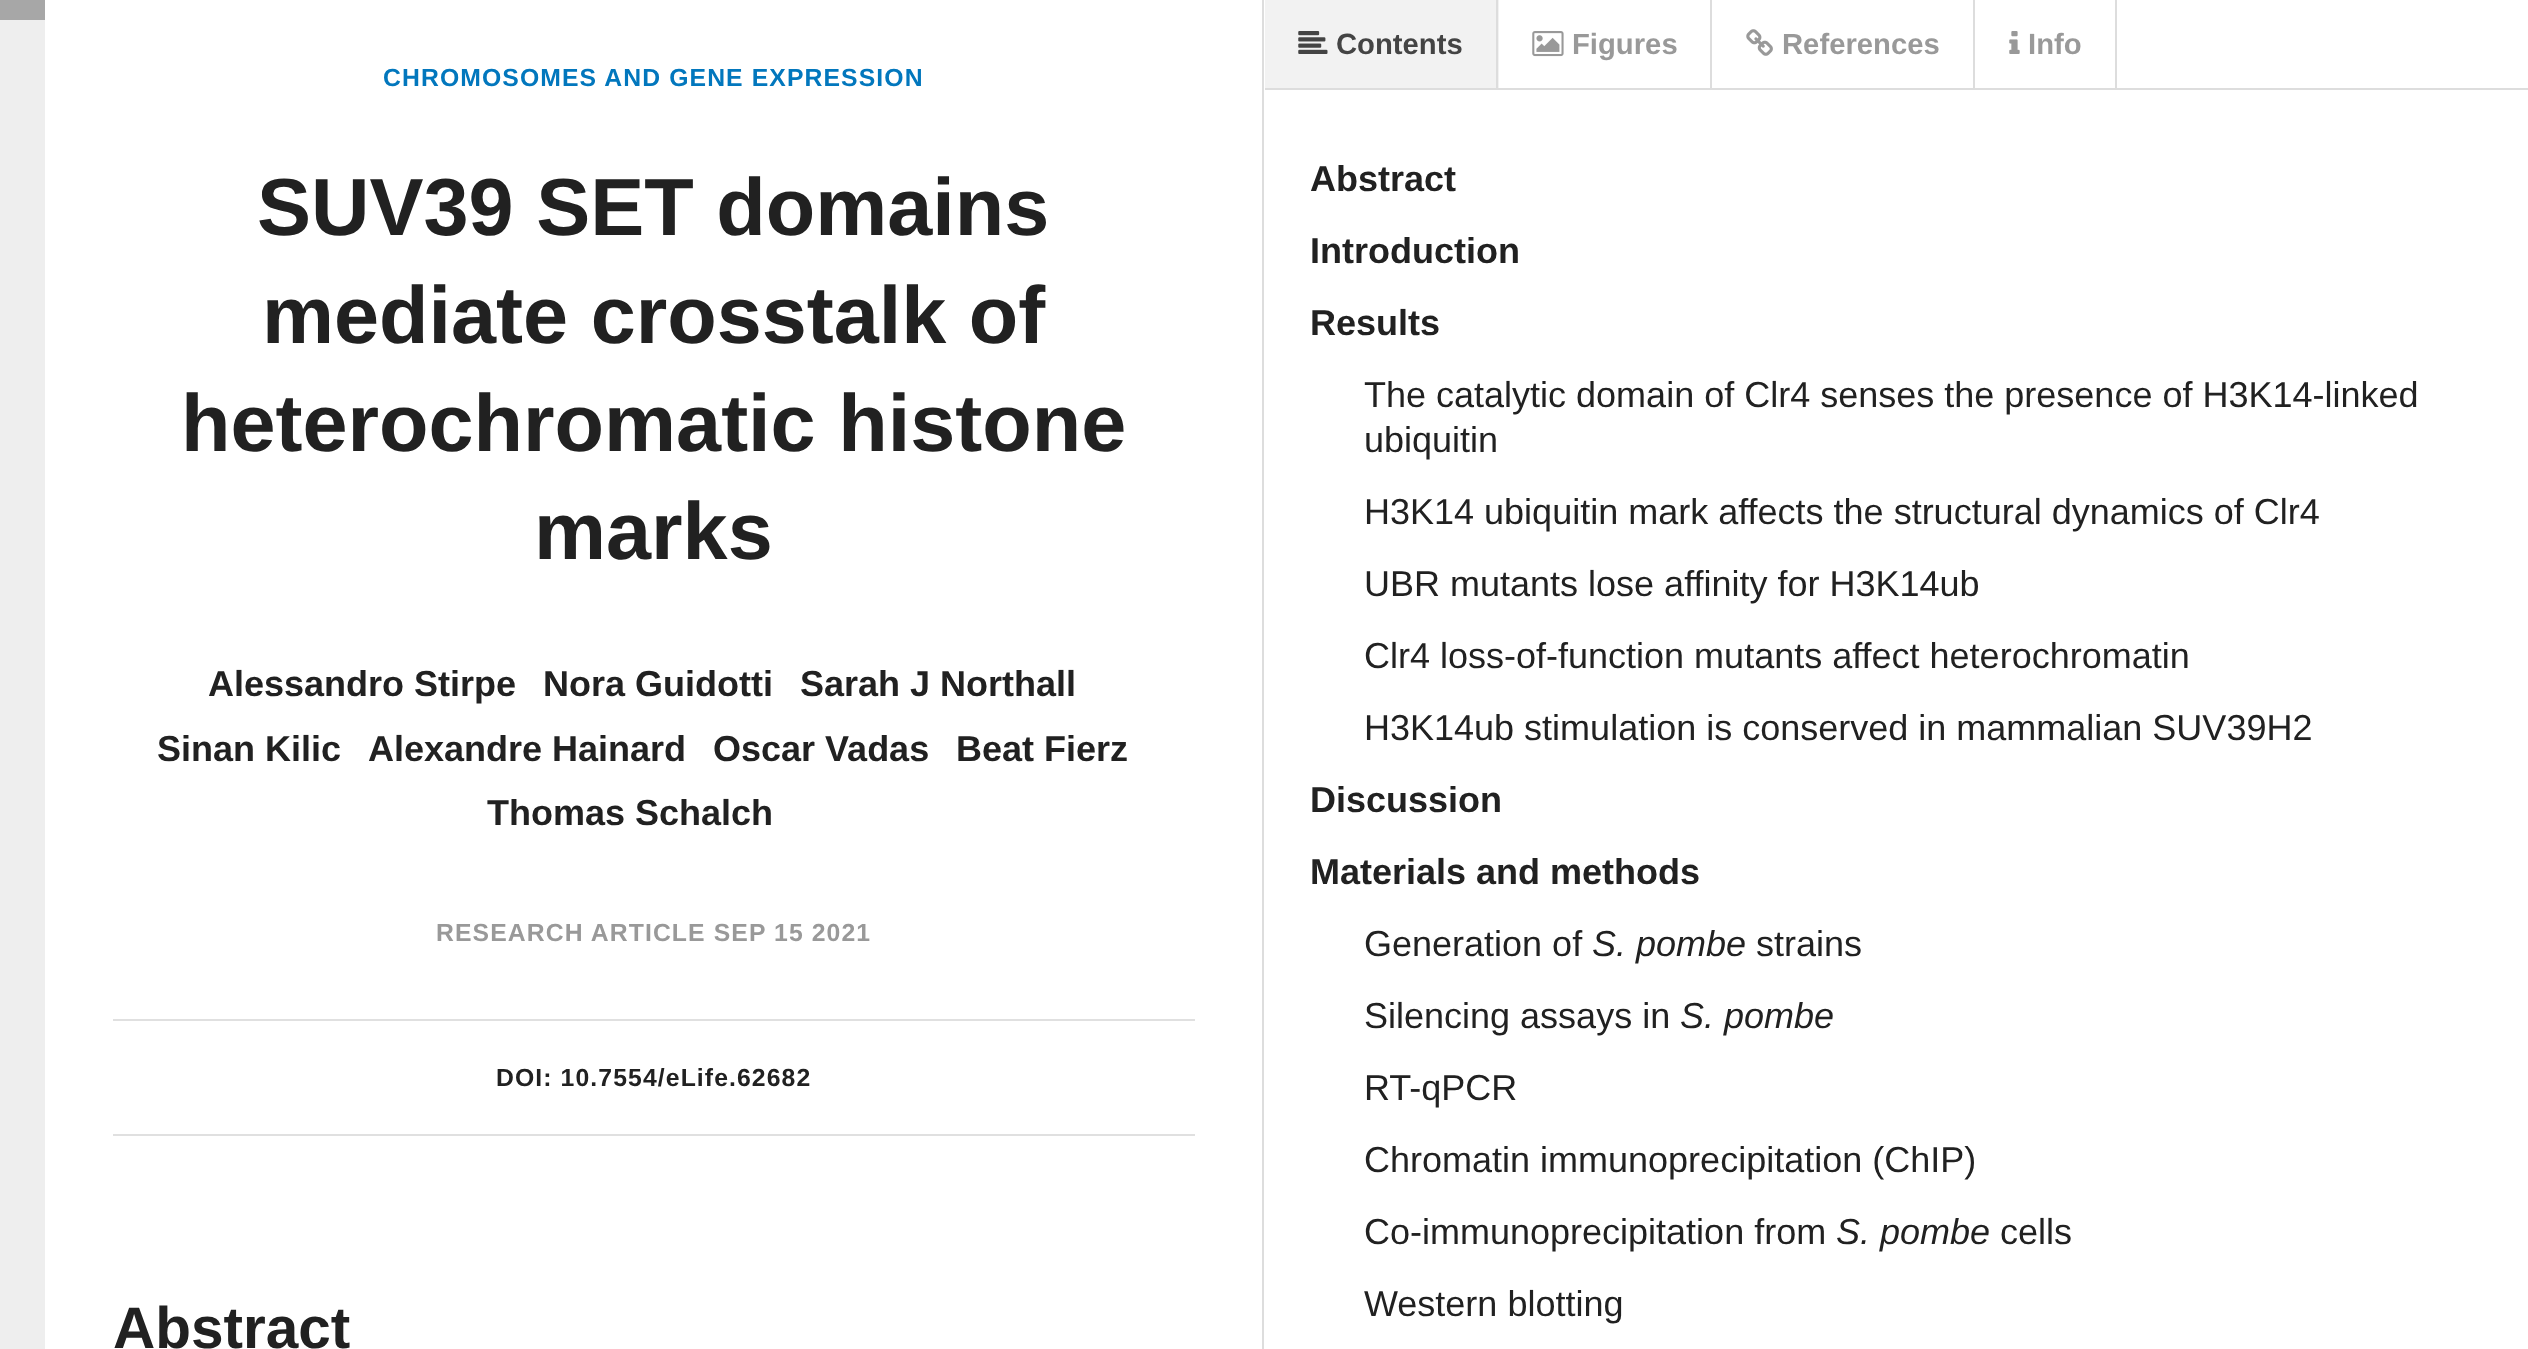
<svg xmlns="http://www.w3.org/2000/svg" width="2528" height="1349">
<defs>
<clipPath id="clip1"><rect x="1265" width="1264" height="88"/></clipPath>
</defs>
<rect width="100%" height="100%" fill="#fff"/>
<rect x="1262" width="2" height="1349" fill="#ddd"/>
<rect y="20" width="45" height="1329" fill="#eee"/>
<rect width="45" height="20" fill="#a7a7a7"/>
<text x="383" y="86" style="font-family:Liberation Sans;font-size:24.75px;font-weight:bold;letter-spacing:1.1px;fill:#0277bd">CHROMOSOMES AND GENE EXPRESSION</text>
<text x="257" y="235" style="font-family:Liberation Sans;font-size:81px;font-weight:bold;fill:#212121">SUV39 SET domains</text>
<text x="262" y="343" style="font-family:Liberation Sans;font-size:81px;font-weight:bold;fill:#212121">mediate crosstalk of</text>
<text x="181" y="451" style="font-family:Liberation Sans;font-size:81px;font-weight:bold;fill:#212121">heterochromatic histone</text>
<text x="534" y="559" style="font-family:Liberation Sans;font-size:81px;font-weight:bold;fill:#212121">marks</text>
<text x="208" y="696" style="font-family:Liberation Sans;font-size:36px;font-weight:bold;fill:#212121">Alessandro Stirpe</text>
<text x="543" y="696" style="font-family:Liberation Sans;font-size:36px;font-weight:bold;fill:#212121">Nora Guidotti</text>
<text x="800" y="696" style="font-family:Liberation Sans;font-size:36px;font-weight:bold;fill:#212121">Sarah J Northall</text>
<text x="157" y="761" style="font-family:Liberation Sans;font-size:36px;font-weight:bold;fill:#212121">Sinan Kilic</text>
<text x="368" y="761" style="font-family:Liberation Sans;font-size:36px;font-weight:bold;fill:#212121">Alexandre Hainard</text>
<text x="713" y="761" style="font-family:Liberation Sans;font-size:36px;font-weight:bold;fill:#212121">Oscar Vadas</text>
<text x="956" y="761" style="font-family:Liberation Sans;font-size:36px;font-weight:bold;fill:#212121">Beat Fierz</text>
<text x="487" y="825" style="font-family:Liberation Sans;font-size:36px;font-weight:bold;fill:#212121">Thomas Schalch</text>
<text x="436" y="941" style="font-family:Liberation Sans;font-size:24.75px;font-weight:bold;letter-spacing:1.1px;fill:#999">RESEARCH ARTICLE SEP 15 2021</text>
<rect x="113" y="1019" width="1082" height="2" fill="#e0e0e0"/>
<rect x="113" y="1134" width="1082" height="2" fill="#e0e0e0"/>
<text x="496" y="1086" style="font-family:Liberation Sans;font-size:24.75px;font-weight:bold;letter-spacing:1.1px;fill:#212121">DOI: 10.7554/eLife.62682</text>
<text x="113" y="1348" style="font-family:Liberation Sans;font-size:58.5px;font-weight:bold;fill:#212121">Abstract</text>
<rect x="1265" y="88" width="1263" height="2" fill="#ddd"/>
<rect x="1265" width="234" height="88" fill="#f2f2f2"/>
<g clip-path="url(#clip1)">
<path d="M1498 0v97l-2-7v-90z" fill="#ddd"/>
</g>
<image x="1298" y="31" width="30" height="23" href="media/1.png"/>
<text x="1336" y="54" style="font-family:Liberation Sans;font-size:29.25px;font-weight:bold;fill:#444">Contents</text>
<rect x="1710" width="2" height="88" fill="#ddd"/>
<image x="1532" y="31" width="32" height="26" href="media/2.png"/>
<text x="1572" y="54" style="font-family:Liberation Sans;font-size:29.25px;font-weight:bold;fill:#999">Figures</text>
<rect x="1973" width="2" height="88" fill="#ddd"/>
<image x="1746" y="29" width="27" height="27" href="media/3.png"/>
<text x="1782" y="54" style="font-family:Liberation Sans;font-size:29.25px;font-weight:bold;fill:#999">References</text>
<rect x="2115" width="2" height="88" fill="#ddd"/>
<image x="2009" y="31" width="11" height="23" href="media/4.png"/>
<text x="2028" y="54" style="font-family:Liberation Sans;font-size:29.25px;font-weight:bold;fill:#999">Info</text>
<text x="1310" y="191" style="font-family:Liberation Sans;font-size:36px;font-weight:bold;fill:#212121">Abstract</text>
<text x="1310" y="263" style="font-family:Liberation Sans;font-size:36px;font-weight:bold;fill:#212121">Introduction</text>
<text x="1310" y="335" style="font-family:Liberation Sans;font-size:36px;font-weight:bold;fill:#212121">Results</text>
<text x="1364" y="407" style="font-family:Liberation Sans;font-size:36px;fill:#212121">The catalytic domain of Clr4 senses the presence of H3K14-linked</text>
<text x="1364" y="452" style="font-family:Liberation Sans;font-size:36px;fill:#212121">ubiquitin</text>
<text x="1364" y="524" style="font-family:Liberation Sans;font-size:36px;fill:#212121">H3K14 ubiquitin mark affects the structural dynamics of Clr4</text>
<text x="1364" y="596" style="font-family:Liberation Sans;font-size:36px;fill:#212121">UBR mutants lose affinity for H3K14ub</text>
<text x="1364" y="668" style="font-family:Liberation Sans;font-size:36px;fill:#212121">Clr4 loss-of-function mutants affect heterochromatin</text>
<text x="1364" y="740" style="font-family:Liberation Sans;font-size:36px;fill:#212121">H3K14ub stimulation is conserved in mammalian SUV39H2</text>
<text x="1310" y="812" style="font-family:Liberation Sans;font-size:36px;font-weight:bold;fill:#212121">Discussion</text>
<text x="1310" y="884" style="font-family:Liberation Sans;font-size:36px;font-weight:bold;fill:#212121">Materials and methods</text>
<text x="1364" y="956" style="font-family:Liberation Sans;font-size:36px;fill:#212121">Generation of</text>
<text x="1592" y="956" style="font-family:Liberation Sans;font-size:36px;font-style:italic;fill:#212121">S. pombe</text>
<text x="1756" y="956" style="font-family:Liberation Sans;font-size:36px;fill:#212121">strains</text>
<text x="1364" y="1028" style="font-family:Liberation Sans;font-size:36px;fill:#212121">Silencing assays in</text>
<text x="1680" y="1028" style="font-family:Liberation Sans;font-size:36px;font-style:italic;fill:#212121">S. pombe</text>
<text x="1364" y="1100" style="font-family:Liberation Sans;font-size:36px;fill:#212121">RT-qPCR</text>
<text x="1364" y="1172" style="font-family:Liberation Sans;font-size:36px;fill:#212121">Chromatin immunoprecipitation (ChIP)</text>
<text x="1364" y="1244" style="font-family:Liberation Sans;font-size:36px;fill:#212121">Co-immunoprecipitation from</text>
<text x="1836" y="1244" style="font-family:Liberation Sans;font-size:36px;font-style:italic;fill:#212121">S. pombe</text>
<text x="2000" y="1244" style="font-family:Liberation Sans;font-size:36px;fill:#212121">cells</text>
<text x="1364" y="1316" style="font-family:Liberation Sans;font-size:36px;fill:#212121">Western blotting</text>
</svg>
